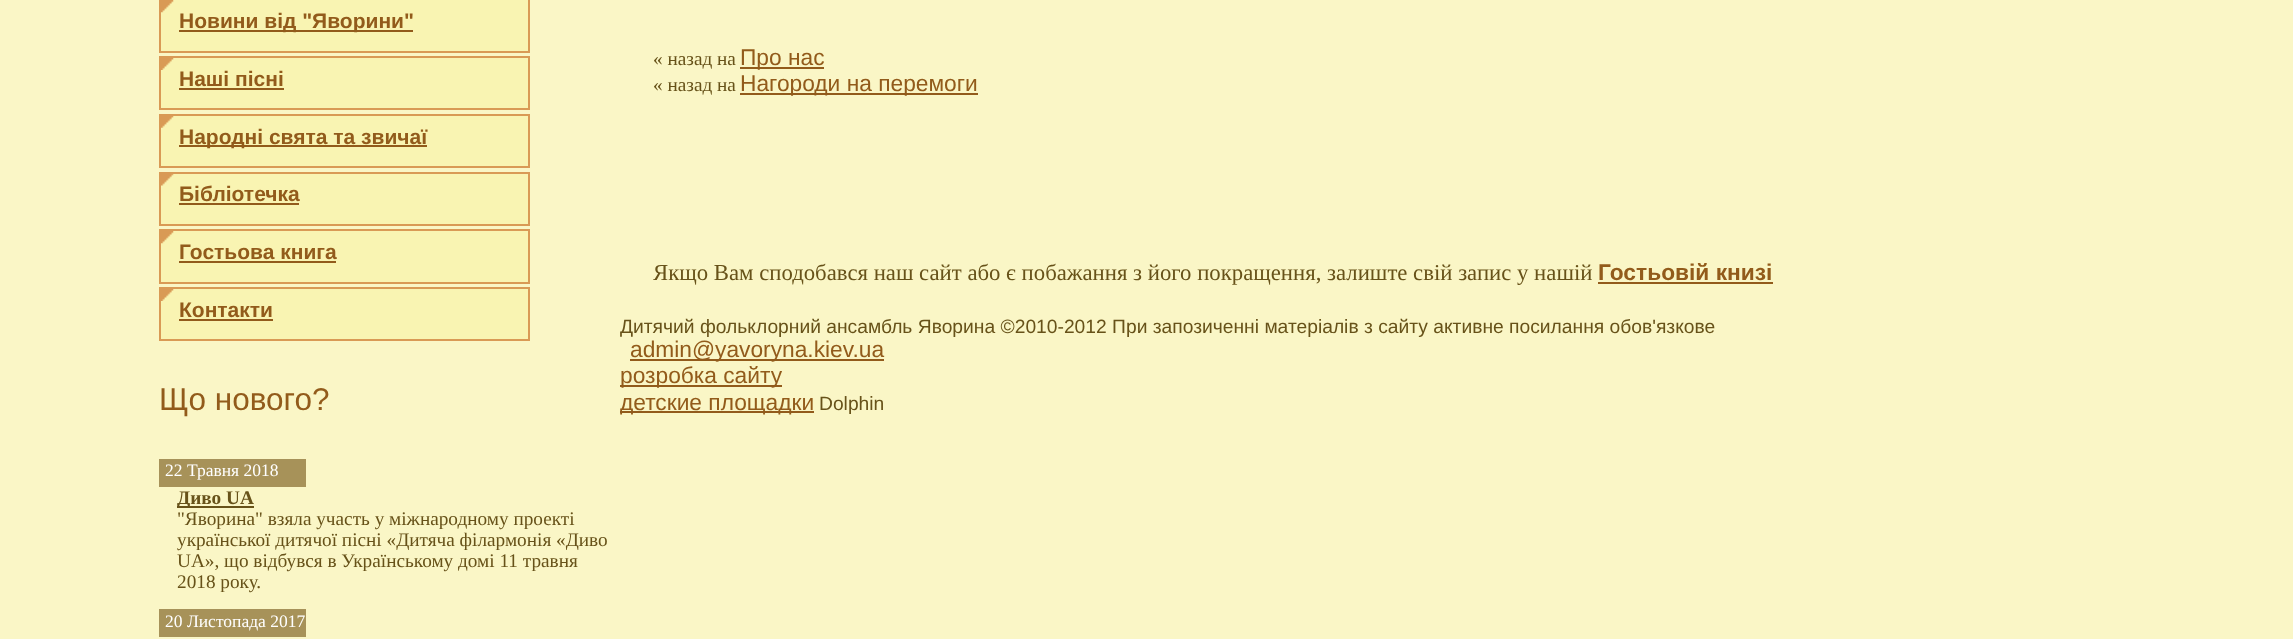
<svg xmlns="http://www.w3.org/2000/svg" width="2293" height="639">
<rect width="100%" height="100%" fill="#faf6c6"/>
<rect x="161" width="367" height="51" fill="#f9f4b2"/>
<image x="161" y="0" width="13" height="13" href="media/1.png"/>
<rect x="160" y="-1" width="369" height="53" fill="none" stroke="#d99a55" stroke-width="2"/>
<rect x="179" y="30" width="234" height="2" fill="#925b1b"/>
<text x="179" y="28" style="font-family:Liberation Sans;font-size:21px;font-weight:bold;fill:#925b1b">Новини від "Яворини"</text>
<rect x="161" y="58" width="367" height="50" fill="#f9f4b2"/>
<image x="161" y="58" width="13" height="12" href="media/2.png"/>
<rect x="160" y="57" width="369" height="52" fill="none" stroke="#d99a55" stroke-width="2"/>
<text x="179" y="86" style="font-family:Liberation Sans;font-size:21px;font-weight:bold;fill:#925b1b">Наші пісні</text>
<rect x="179" y="88" width="105" height="2" fill="#925b1b"/>
<rect x="161" y="116" width="367" height="50" fill="#f9f4b2"/>
<image x="161" y="116" width="13" height="12" href="media/3.png"/>
<rect x="160" y="115" width="369" height="52" fill="none" stroke="#d99a55" stroke-width="2"/>
<rect x="179" y="145" width="248" height="2" fill="#925b1b"/>
<text x="179" y="144" style="font-family:Liberation Sans;font-size:21px;font-weight:bold;fill:#925b1b">Народні свята та звичаї</text>
<rect x="161" y="174" width="367" height="50" fill="#f9f4b2"/>
<image x="161" y="174" width="13" height="12" href="media/4.png"/>
<rect x="160" y="173" width="369" height="52" fill="none" stroke="#d99a55" stroke-width="2"/>
<text x="179" y="201" style="font-family:Liberation Sans;font-size:21px;font-weight:bold;fill:#925b1b">Бібліотечка</text>
<rect x="179" y="203" width="120" height="2" fill="#925b1b"/>
<rect x="161" y="231" width="367" height="51" fill="#f9f4b2"/>
<image x="161" y="231" width="13" height="13" href="media/1.png"/>
<rect x="160" y="230" width="369" height="53" fill="none" stroke="#d99a55" stroke-width="2"/>
<text x="179" y="259" style="font-family:Liberation Sans;font-size:21px;font-weight:bold;fill:#925b1b">Гостьова книга</text>
<rect x="179" y="261" width="157" height="2" fill="#925b1b"/>
<rect x="161" y="289" width="367" height="50" fill="#f9f4b2"/>
<image x="161" y="289" width="13" height="12" href="media/2.png"/>
<rect x="160" y="288" width="369" height="52" fill="none" stroke="#d99a55" stroke-width="2"/>
<text x="179" y="317" style="font-family:Liberation Sans;font-size:21px;font-weight:bold;fill:#925b1b">Контакти</text>
<rect x="179" y="319" width="94" height="2" fill="#925b1b"/>
<text x="159" y="410" style="font-family:Liberation Sans;font-size:31.5px;fill:#925b1b">Що нового?</text>
<rect x="159" y="459" width="147" height="28" fill="#a79259"/>
<text x="165" y="476" style="font-family:Liberation Serif;font-size:17.5px;fill:#fff">22 Травня 2018</text>
<rect x="177" y="506" width="77" height="2" fill="#675219"/>
<text x="177" y="504" style="font-family:Liberation Serif;font-size:19.25px;font-weight:bold;fill:#675219">Диво UA</text>
<text x="177" y="525" style="font-family:Liberation Serif;font-size:19.25px;fill:#675219">"Яворина" взяла участь у міжнародному проекті</text>
<text x="177" y="546" style="font-family:Liberation Serif;font-size:19.25px;fill:#675219">української дитячої пісні «Дитяча філармонія «Диво</text>
<text x="177" y="567" style="font-family:Liberation Serif;font-size:19.25px;fill:#675219">UA», що відбувся в Українському домі 11 травня</text>
<text x="177" y="588" style="font-family:Liberation Serif;font-size:19.25px;fill:#675219">2018 року.</text>
<rect x="159" y="609" width="147" height="28" fill="#a79259"/>
<text x="165" y="627" style="font-family:Liberation Serif;font-size:17.5px;fill:#fff">20 Листопада 2017</text>
<text x="653" y="65" style="font-family:Liberation Serif;font-size:19.25px;fill:#675219">« назад на</text>
<rect x="740" y="67" width="84" height="2" fill="#925b1b"/>
<text x="740" y="65" style="font-family:Liberation Sans;font-size:22.75px;fill:#925b1b">Про нас</text>
<text x="653" y="91" style="font-family:Liberation Serif;font-size:19.25px;fill:#675219">« назад на</text>
<rect x="740" y="93" width="238" height="2" fill="#925b1b"/>
<text x="740" y="91" style="font-family:Liberation Sans;font-size:22.75px;fill:#925b1b">Нагороди на перемоги</text>
<text x="653" y="280" style="font-family:Liberation Serif;font-size:22.75px;fill:#675219">Якщо Вам сподобався наш сайт або є побажання з його покращення, залиште свій запис у нашій</text>
<text x="1598" y="280" style="font-family:Liberation Sans;font-size:22.75px;font-weight:bold;fill:#925b1b">Гостьовій книзі</text>
<rect x="1598" y="282" width="175" height="2" fill="#925b1b"/>
<text x="620" y="333" style="font-family:Liberation Sans;font-size:19.25px;fill:#675219">Дитячий фольклорний ансамбль Яворина ©2010-2012 При запозиченні матеріалів з сайту активне посилання обов'язкове</text>
<rect x="630" y="359" width="254" height="2" fill="#925b1b"/>
<text x="630" y="357" style="font-family:Liberation Sans;font-size:22.75px;fill:#925b1b">admin@yavoryna.kiev.ua</text>
<rect x="620" y="385" width="162" height="2" fill="#925b1b"/>
<text x="620" y="383" style="font-family:Liberation Sans;font-size:22.75px;fill:#925b1b">розробка сайту</text>
<rect x="620" y="411" width="194" height="2" fill="#925b1b"/>
<text x="620" y="410" style="font-family:Liberation Sans;font-size:22.75px;fill:#925b1b">детские площадки</text>
<text x="819" y="410" style="font-family:Liberation Sans;font-size:19.25px;fill:#675219">Dolphin</text>
</svg>
